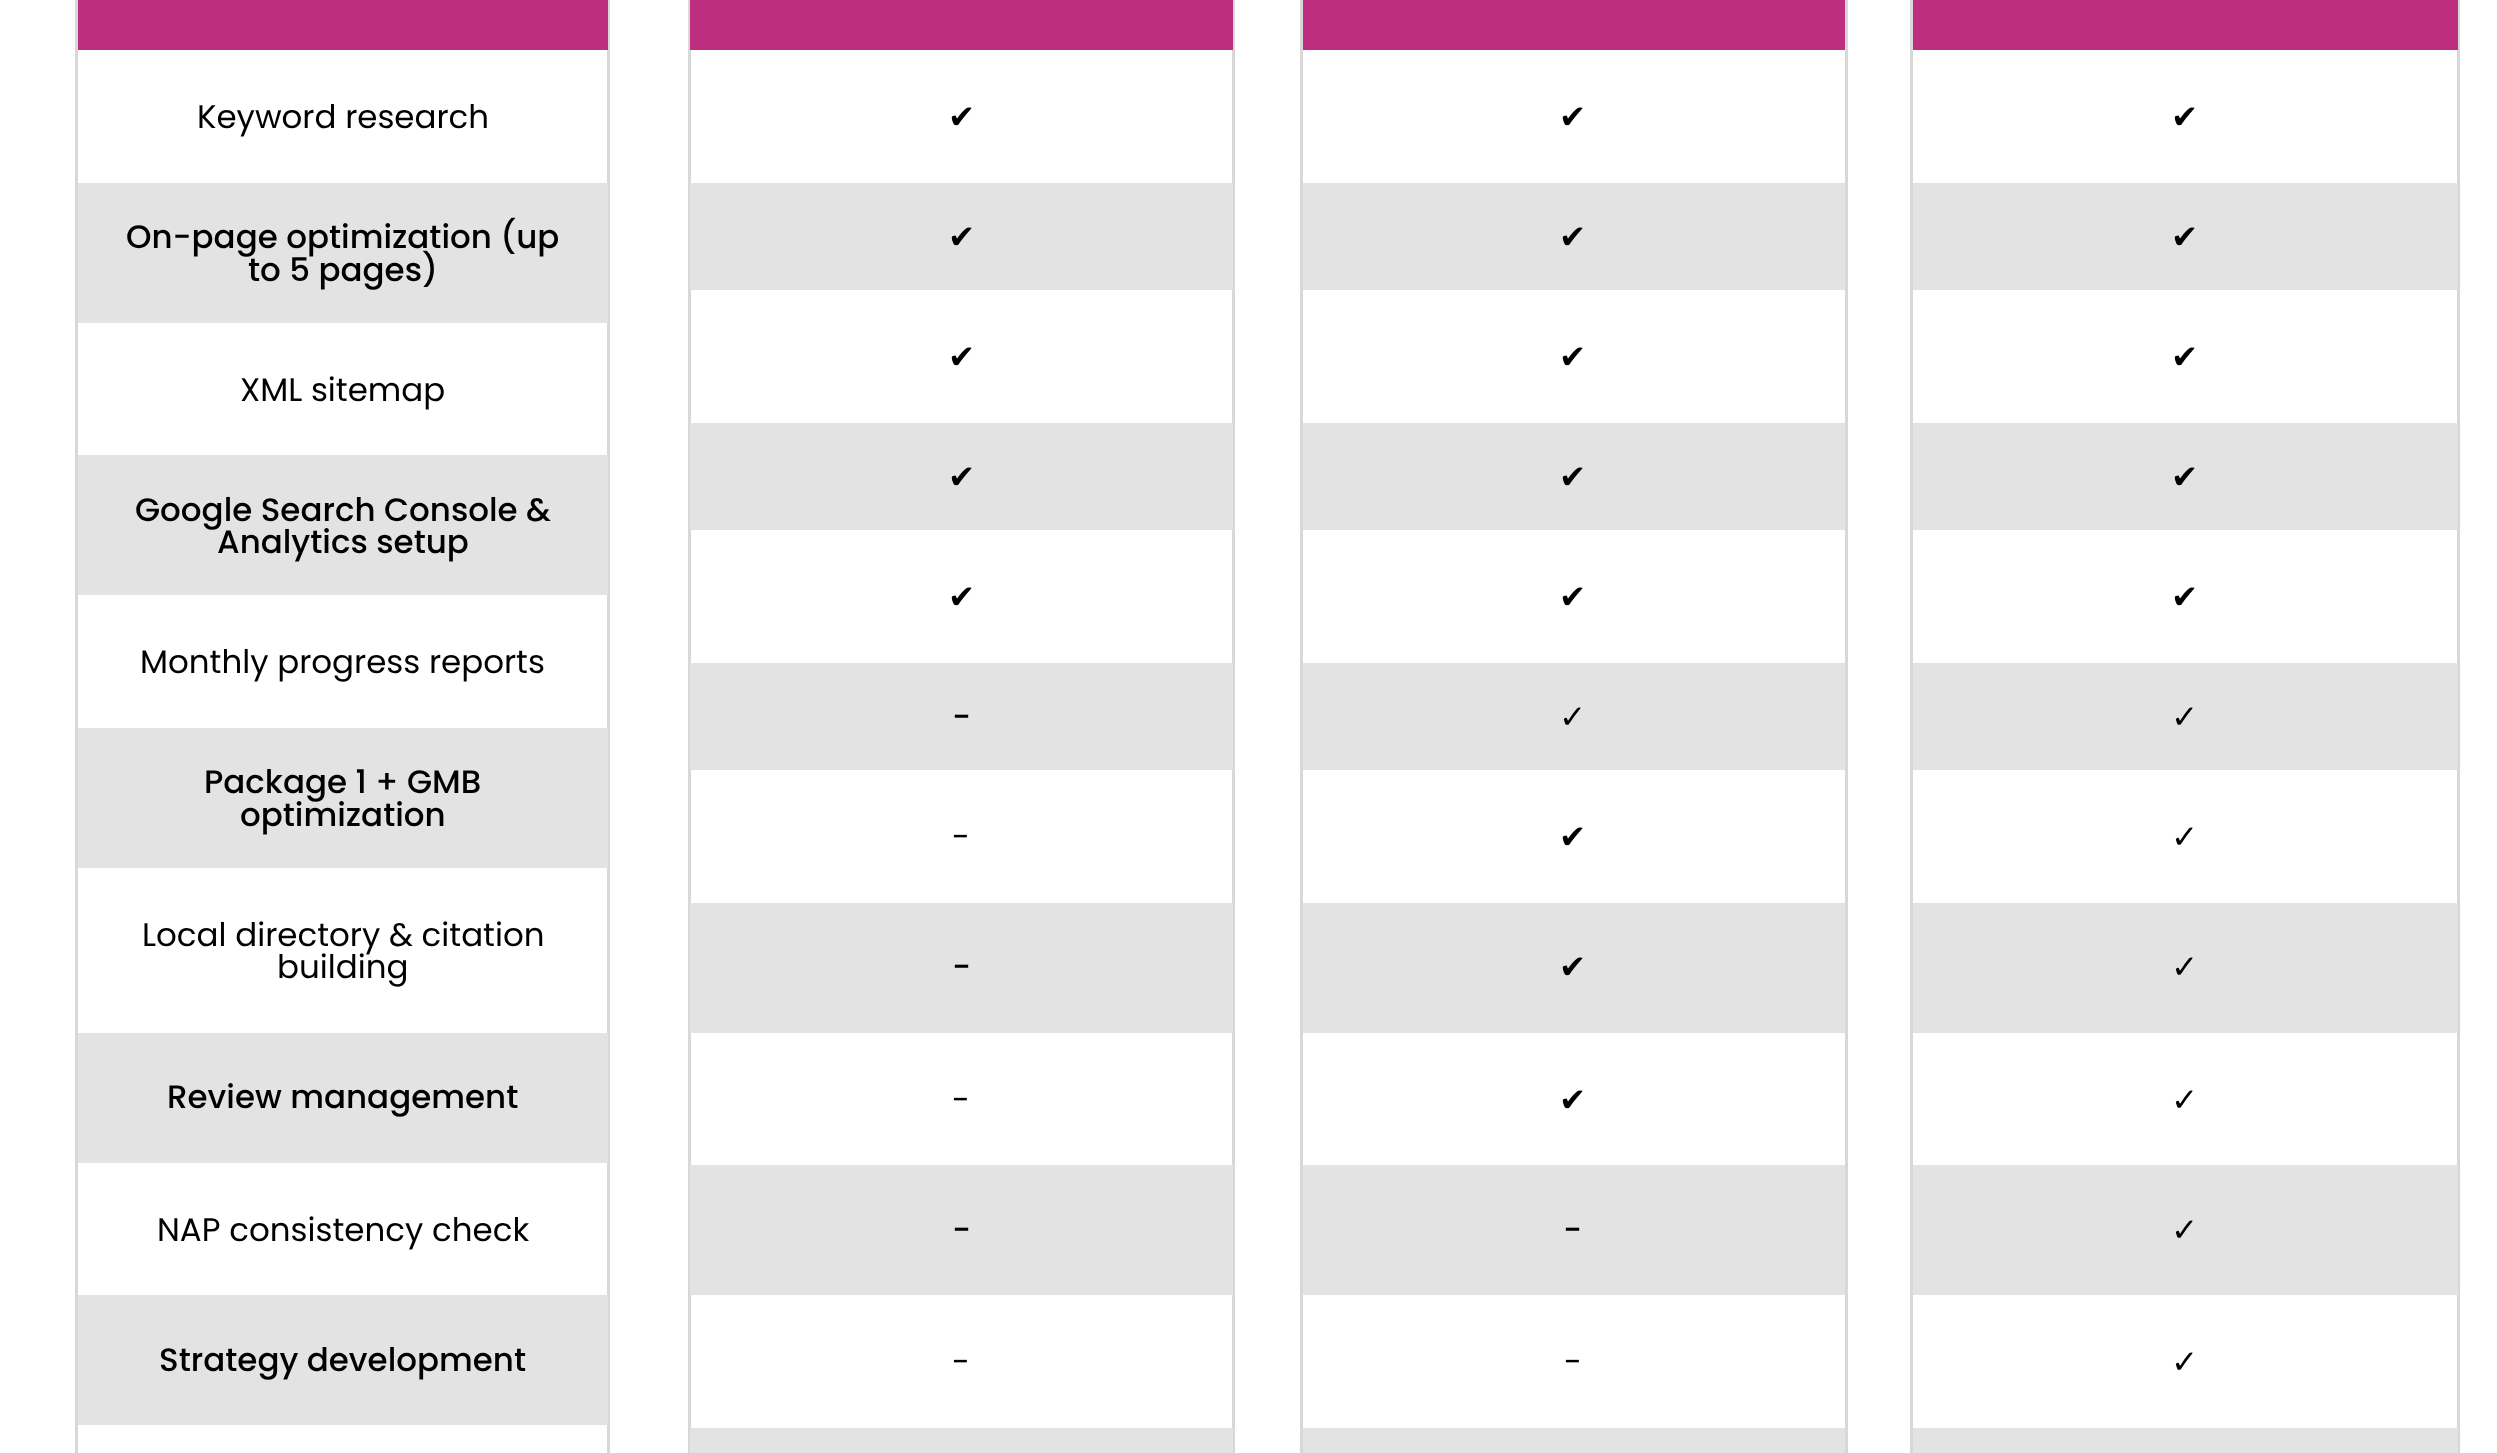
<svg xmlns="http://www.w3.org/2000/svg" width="2497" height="1453">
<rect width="100%" height="100%" fill="#fff"/>
<rect x="76.5" y="-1.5" width="532" height="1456" fill="none" stroke="#d8d8d8" stroke-width="3"/>
<rect x="78" width="530" height="50" fill="#be2e7e"/>
<text x="197" y="128" style="font-family:Poppins;font-size:32.5px;fill:#000">Keyword research</text>
<rect x="78" y="183" width="530" height="140" fill="#e4e3e3"/>
<text x="126" y="248" style="font-family:Poppins;font-size:32.5px;font-weight:500;fill:#000">On-page optimization (up</text>
<text x="248" y="281" style="font-family:Poppins;font-size:32.5px;font-weight:500;fill:#000">to 5 pages)</text>
<text x="240" y="401" style="font-family:Poppins;font-size:32.5px;fill:#000">XML sitemap</text>
<rect x="78" y="455" width="530" height="140" fill="#e4e3e3"/>
<text x="135" y="521" style="font-family:Poppins;font-size:32.5px;font-weight:500;fill:#000">Google Search Console &amp;</text>
<text x="217" y="553" style="font-family:Poppins;font-size:32.5px;font-weight:500;fill:#000">Analytics setup</text>
<text x="140" y="673" style="font-family:Poppins;font-size:32.5px;fill:#000">Monthly progress reports</text>
<rect x="78" y="728" width="530" height="140" fill="#e4e3e3"/>
<text x="204" y="793" style="font-family:Poppins;font-size:32.5px;font-weight:500;fill:#000">Package 1 + GMB</text>
<text x="240" y="826" style="font-family:Poppins;font-size:32.5px;font-weight:500;fill:#000">optimization</text>
<text x="142" y="946" style="font-family:Poppins;font-size:32.5px;fill:#000">Local directory &amp; citation</text>
<text x="277" y="978" style="font-family:Poppins;font-size:32.5px;fill:#000">building</text>
<rect x="78" y="1033" width="530" height="130" fill="#e4e3e3"/>
<text x="167" y="1108" style="font-family:Poppins;font-size:32.5px;font-weight:500;fill:#000">Review management</text>
<text x="157" y="1241" style="font-family:Poppins;font-size:32.5px;fill:#000">NAP consistency check</text>
<rect x="78" y="1295" width="530" height="130" fill="#e4e3e3"/>
<text x="159" y="1371" style="font-family:Poppins;font-size:32.5px;font-weight:500;fill:#000">Strategy development</text>
<rect x="689.5" y="-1.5" width="544" height="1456" fill="none" stroke="#d8d8d8" stroke-width="3"/>
<rect x="690" width="543" height="50" fill="#be2e7e"/>
<text x="948" y="128" style="font-family:DejaVu Sans;font-size:32.5px;fill:#000">✔</text>
<rect x="690" y="183" width="543" height="107" fill="#e4e3e3"/>
<text x="948" y="248" style="font-family:DejaVu Sans;font-size:32.5px;fill:#000">✔</text>
<text x="948" y="368" style="font-family:DejaVu Sans;font-size:32.5px;fill:#000">✔</text>
<rect x="690" y="423" width="543" height="107" fill="#e4e3e3"/>
<text x="948" y="488" style="font-family:DejaVu Sans;font-size:32.5px;fill:#000">✔</text>
<text x="948" y="608" style="font-family:DejaVu Sans;font-size:32.5px;fill:#000">✔</text>
<rect x="690" y="663" width="543" height="107" fill="#e4e3e3"/>
<text x="952" y="728" style="font-family:Poppins;font-size:32.5px;font-weight:500;fill:#000">-</text>
<text x="952" y="848" style="font-family:Poppins;font-size:32.5px;fill:#000">-</text>
<rect x="690" y="903" width="543" height="130" fill="#e4e3e3"/>
<text x="952" y="978" style="font-family:Poppins;font-size:32.5px;font-weight:500;fill:#000">-</text>
<text x="952" y="1111" style="font-family:Poppins;font-size:32.5px;fill:#000">-</text>
<rect x="690" y="1165" width="543" height="130" fill="#e4e3e3"/>
<text x="952" y="1241" style="font-family:Poppins;font-size:32.5px;font-weight:500;fill:#000">-</text>
<text x="952" y="1373" style="font-family:Poppins;font-size:32.5px;fill:#000">-</text>
<rect x="690" y="1428" width="543" height="25" fill="#e4e3e3"/>
<rect x="1301.5" y="-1.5" width="545" height="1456" fill="none" stroke="#d8d8d8" stroke-width="3"/>
<rect x="1303" width="542" height="50" fill="#be2e7e"/>
<text x="1559" y="128" style="font-family:DejaVu Sans;font-size:32.5px;fill:#000">✔</text>
<rect x="1303" y="183" width="542" height="107" fill="#e4e3e3"/>
<text x="1559" y="248" style="font-family:DejaVu Sans;font-size:32.5px;fill:#000">✔</text>
<text x="1559" y="368" style="font-family:DejaVu Sans;font-size:32.5px;fill:#000">✔</text>
<rect x="1303" y="423" width="542" height="107" fill="#e4e3e3"/>
<text x="1559" y="488" style="font-family:DejaVu Sans;font-size:32.5px;fill:#000">✔</text>
<text x="1559" y="608" style="font-family:DejaVu Sans;font-size:32.5px;fill:#000">✔</text>
<rect x="1303" y="663" width="542" height="107" fill="#e4e3e3"/>
<text x="1559" y="728" style="font-family:DejaVu Sans;font-size:32.5px;fill:#000">✓</text>
<text x="1559" y="848" style="font-family:DejaVu Sans;font-size:32.5px;fill:#000">✔</text>
<rect x="1303" y="903" width="542" height="130" fill="#e4e3e3"/>
<text x="1559" y="978" style="font-family:DejaVu Sans;font-size:32.5px;fill:#000">✔</text>
<text x="1559" y="1111" style="font-family:DejaVu Sans;font-size:32.5px;fill:#000">✔</text>
<rect x="1303" y="1165" width="542" height="130" fill="#e4e3e3"/>
<text x="1563" y="1241" style="font-family:Poppins;font-size:32.5px;font-weight:500;fill:#000">-</text>
<text x="1564" y="1373" style="font-family:Poppins;font-size:32.5px;fill:#000">-</text>
<rect x="1303" y="1428" width="542" height="25" fill="#e4e3e3"/>
<rect x="1911.5" y="-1.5" width="547" height="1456" fill="none" stroke="#d8d8d8" stroke-width="3"/>
<rect x="1913" width="545" height="50" fill="#be2e7e"/>
<text x="2171" y="128" style="font-family:DejaVu Sans;font-size:32.5px;fill:#000">✔</text>
<rect x="1913" y="183" width="545" height="107" fill="#e4e3e3"/>
<text x="2171" y="248" style="font-family:DejaVu Sans;font-size:32.5px;fill:#000">✔</text>
<text x="2171" y="368" style="font-family:DejaVu Sans;font-size:32.5px;fill:#000">✔</text>
<rect x="1913" y="423" width="545" height="107" fill="#e4e3e3"/>
<text x="2171" y="488" style="font-family:DejaVu Sans;font-size:32.5px;fill:#000">✔</text>
<text x="2171" y="608" style="font-family:DejaVu Sans;font-size:32.5px;fill:#000">✔</text>
<rect x="1913" y="663" width="545" height="107" fill="#e4e3e3"/>
<text x="2171" y="728" style="font-family:DejaVu Sans;font-size:32.5px;fill:#000">✓</text>
<text x="2171" y="848" style="font-family:DejaVu Sans;font-size:32.5px;fill:#000">✓</text>
<rect x="1913" y="903" width="545" height="130" fill="#e4e3e3"/>
<text x="2171" y="978" style="font-family:DejaVu Sans;font-size:32.5px;fill:#000">✓</text>
<text x="2171" y="1111" style="font-family:DejaVu Sans;font-size:32.5px;fill:#000">✓</text>
<rect x="1913" y="1165" width="545" height="130" fill="#e4e3e3"/>
<text x="2171" y="1241" style="font-family:DejaVu Sans;font-size:32.5px;fill:#000">✓</text>
<text x="2171" y="1373" style="font-family:DejaVu Sans;font-size:32.5px;fill:#000">✓</text>
<rect x="1913" y="1428" width="545" height="25" fill="#e4e3e3"/>
</svg>
